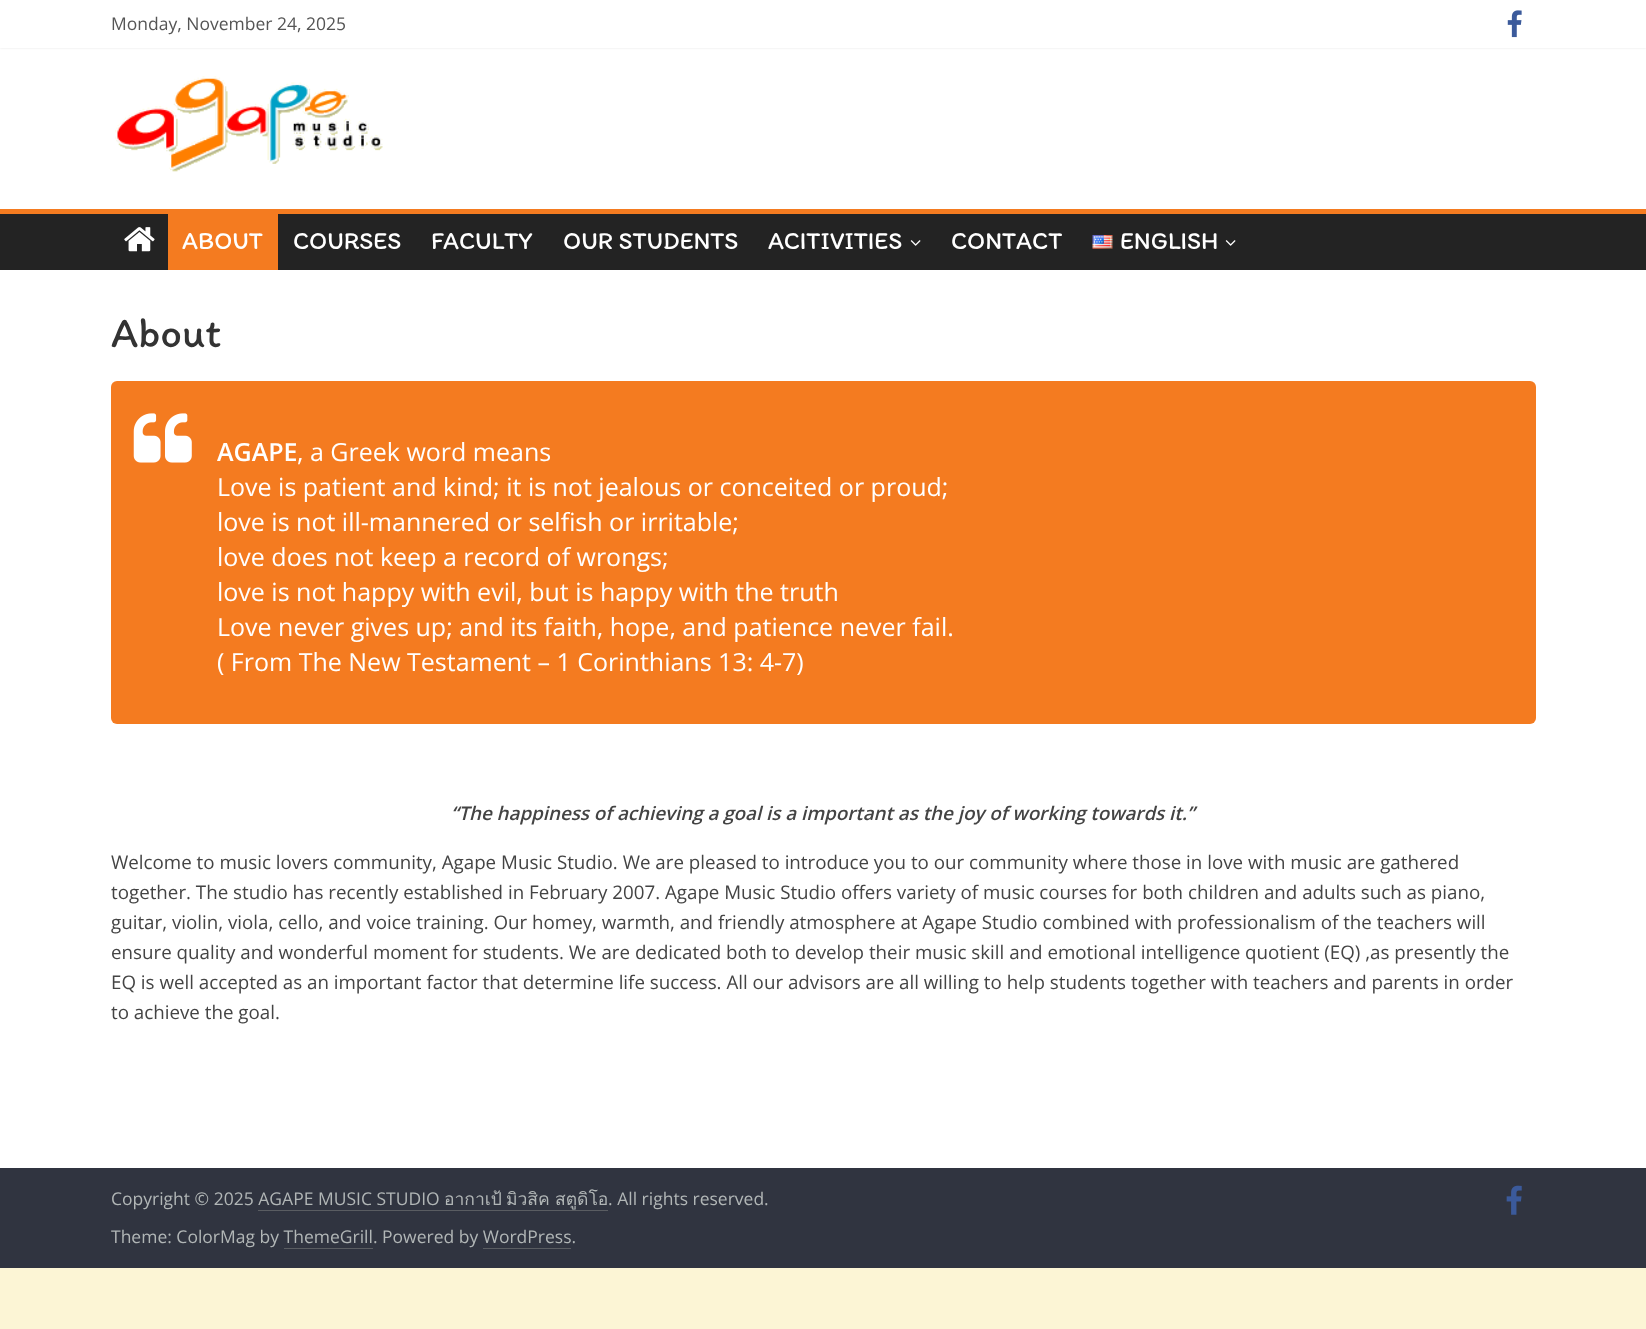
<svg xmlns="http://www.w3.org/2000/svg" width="1646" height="1329">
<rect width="100%" height="100%" fill="#fcf5d5"/>
<rect y="48" width="1646" height="161" fill="#fff"/>
<rect width="1646" height="48" fill="#0000001a" filter="blur(1px)"/>
<rect width="1646" height="48" fill="#fff"/>
<text x="111" y="30" style="font-family:Open Sans;font-size:17.5px;fill:#555">Monday, November 24, 2025</text>
<image x="1507" y="10" width="15" height="28" href="media/1.png"/>
<image x="115" y="76" width="268" height="96" href="media/2.png"/>
<rect y="214" width="1646" height="56" fill="#232323"/>
<rect y="209" width="1646" height="5" fill="#f47b20"/>
<image x="124" y="227" width="31" height="25" href="media/3.png"/>
<rect x="168" y="214" width="110" height="56" fill="#f47b20"/>
<text x="182" y="249" style="font-family:Itim;font-size:25px;fill:#fff">ABOUT</text>
<text x="293" y="249" style="font-family:Itim;font-size:25px;fill:#fff">COURSES</text>
<text x="431" y="249" style="font-family:Itim;font-size:25px;fill:#fff">FACULTY</text>
<text x="563" y="249" style="font-family:Itim;font-size:25px;fill:#fff">OUR STUDENTS</text>
<text x="768" y="249" style="font-family:Itim;font-size:25px;fill:#fff">ACITIVITIES</text>
<image x="910" y="240" width="11" height="6" href="media/4.png"/>
<text x="951" y="249" style="font-family:Itim;font-size:25px;fill:#fff">CONTACT</text>
<image x="1092" y="235" width="21" height="14" href="media/5.png"/>
<text x="1120" y="249" style="font-family:Itim;font-size:25px;fill:#fff">ENGLISH</text>
<image x="1225" y="240" width="11" height="6" href="media/4.png"/>
<rect y="270" width="1646" height="898" fill="#fff"/>
<text x="111" y="347" style="font-family:Itim;font-size:42.5px;fill:#333">About</text>
<rect x="111" y="381" width="1425" height="343" rx="6" fill="#f47b20"/>
<image x="133" y="413" width="59" height="50" href="media/6.png"/>
<text x="217" y="461" style="font-family:Open Sans;font-size:25px;font-weight:600;fill:#fff">AGAPE</text>
<text x="297" y="461" style="font-family:Open Sans;font-size:25px;fill:#fff">, a Greek word means</text>
<text x="217" y="496" style="font-family:Open Sans;font-size:25px;fill:#fff">Love is patient and kind; it is not jealous or conceited or proud;</text>
<text x="217" y="531" style="font-family:Open Sans;font-size:25px;fill:#fff">love is not ill-mannered or selfish or irritable;</text>
<text x="217" y="566" style="font-family:Open Sans;font-size:25px;fill:#fff">love does not keep a record of wrongs;</text>
<text x="217" y="601" style="font-family:Open Sans;font-size:25px;fill:#fff">love is not happy with evil, but is happy with the truth</text>
<text x="217" y="636" style="font-family:Open Sans;font-size:25px;fill:#fff">Love never gives up; and its faith, hope, and patience never fail.</text>
<text x="217" y="671" style="font-family:Open Sans;font-size:25px;fill:#fff">( From The New Testament – 1 Corinthians 13: 4-7)</text>
<text x="451" y="820" style="font-family:Open Sans;font-size:18.75px;font-weight:600;font-style:italic;fill:#444">“The happiness of achieving a goal is a important as the joy of working towards it.”</text>
<text x="111" y="869" style="font-family:Open Sans;font-size:18.75px;fill:#444">Welcome to music lovers community, Agape Music Studio. We are pleased to introduce you to our community where those in love with music are gathered</text>
<text x="111" y="899" style="font-family:Open Sans;font-size:18.75px;fill:#444">together. The studio has recently established in February 2007. Agape Music Studio offers variety of music courses for both children and adults such as piano,</text>
<text x="111" y="929" style="font-family:Open Sans;font-size:18.75px;fill:#444">guitar, violin, viola, cello, and voice training. Our homey, warmth, and friendly atmosphere at Agape Studio combined with professionalism of the teachers will</text>
<text x="111" y="959" style="font-family:Open Sans;font-size:18.75px;fill:#444">ensure quality and wonderful moment for students. We are dedicated both to develop their music skill and emotional intelligence quotient (EQ) ,as presently the</text>
<text x="111" y="989" style="font-family:Open Sans;font-size:18.75px;fill:#444">EQ is well accepted as an important factor that determine life success. All our advisors are all willing to help students together with teachers and parents in order</text>
<text x="111" y="1019" style="font-family:Open Sans;font-size:18.75px;fill:#444">to achieve the goal.</text>
<rect y="1168" width="1646" height="100" fill="#303440"/>
<text x="111" y="1205" style="font-family:Open Sans;font-size:17.5px;fill:#b1b6b6">Copyright © 2025 AGAPE MUSIC STUDIO</text>
<text x="444" y="1205" style="font-family:Loma;font-size:17.5px;fill:#b1b6b6">อากาเป้</text>
<text x="506" y="1205" style="font-family:Loma;font-size:17.5px;fill:#b1b6b6">มิวสิค</text>
<text x="555" y="1205" style="font-family:Loma;font-size:17.5px;fill:#b1b6b6">สตูดิโอ</text>
<rect x="258" y="1210" width="350" height="1" fill="#5a5d62"/>
<text x="608" y="1205" style="font-family:Open Sans;font-size:17.5px;fill:#b1b6b6">. All rights reserved.</text>
<text x="111" y="1243" style="font-family:Open Sans;font-size:17.5px;fill:#b1b6b6">Theme: ColorMag by ThemeGrill. Powered by WordPress.</text>
<rect x="284" y="1248" width="89" height="1" fill="#5a5d62"/>
<rect x="483" y="1248" width="88" height="1" fill="#5a5d62"/>
<image x="1506" y="1185" width="16" height="30" href="media/7.png"/>
</svg>
